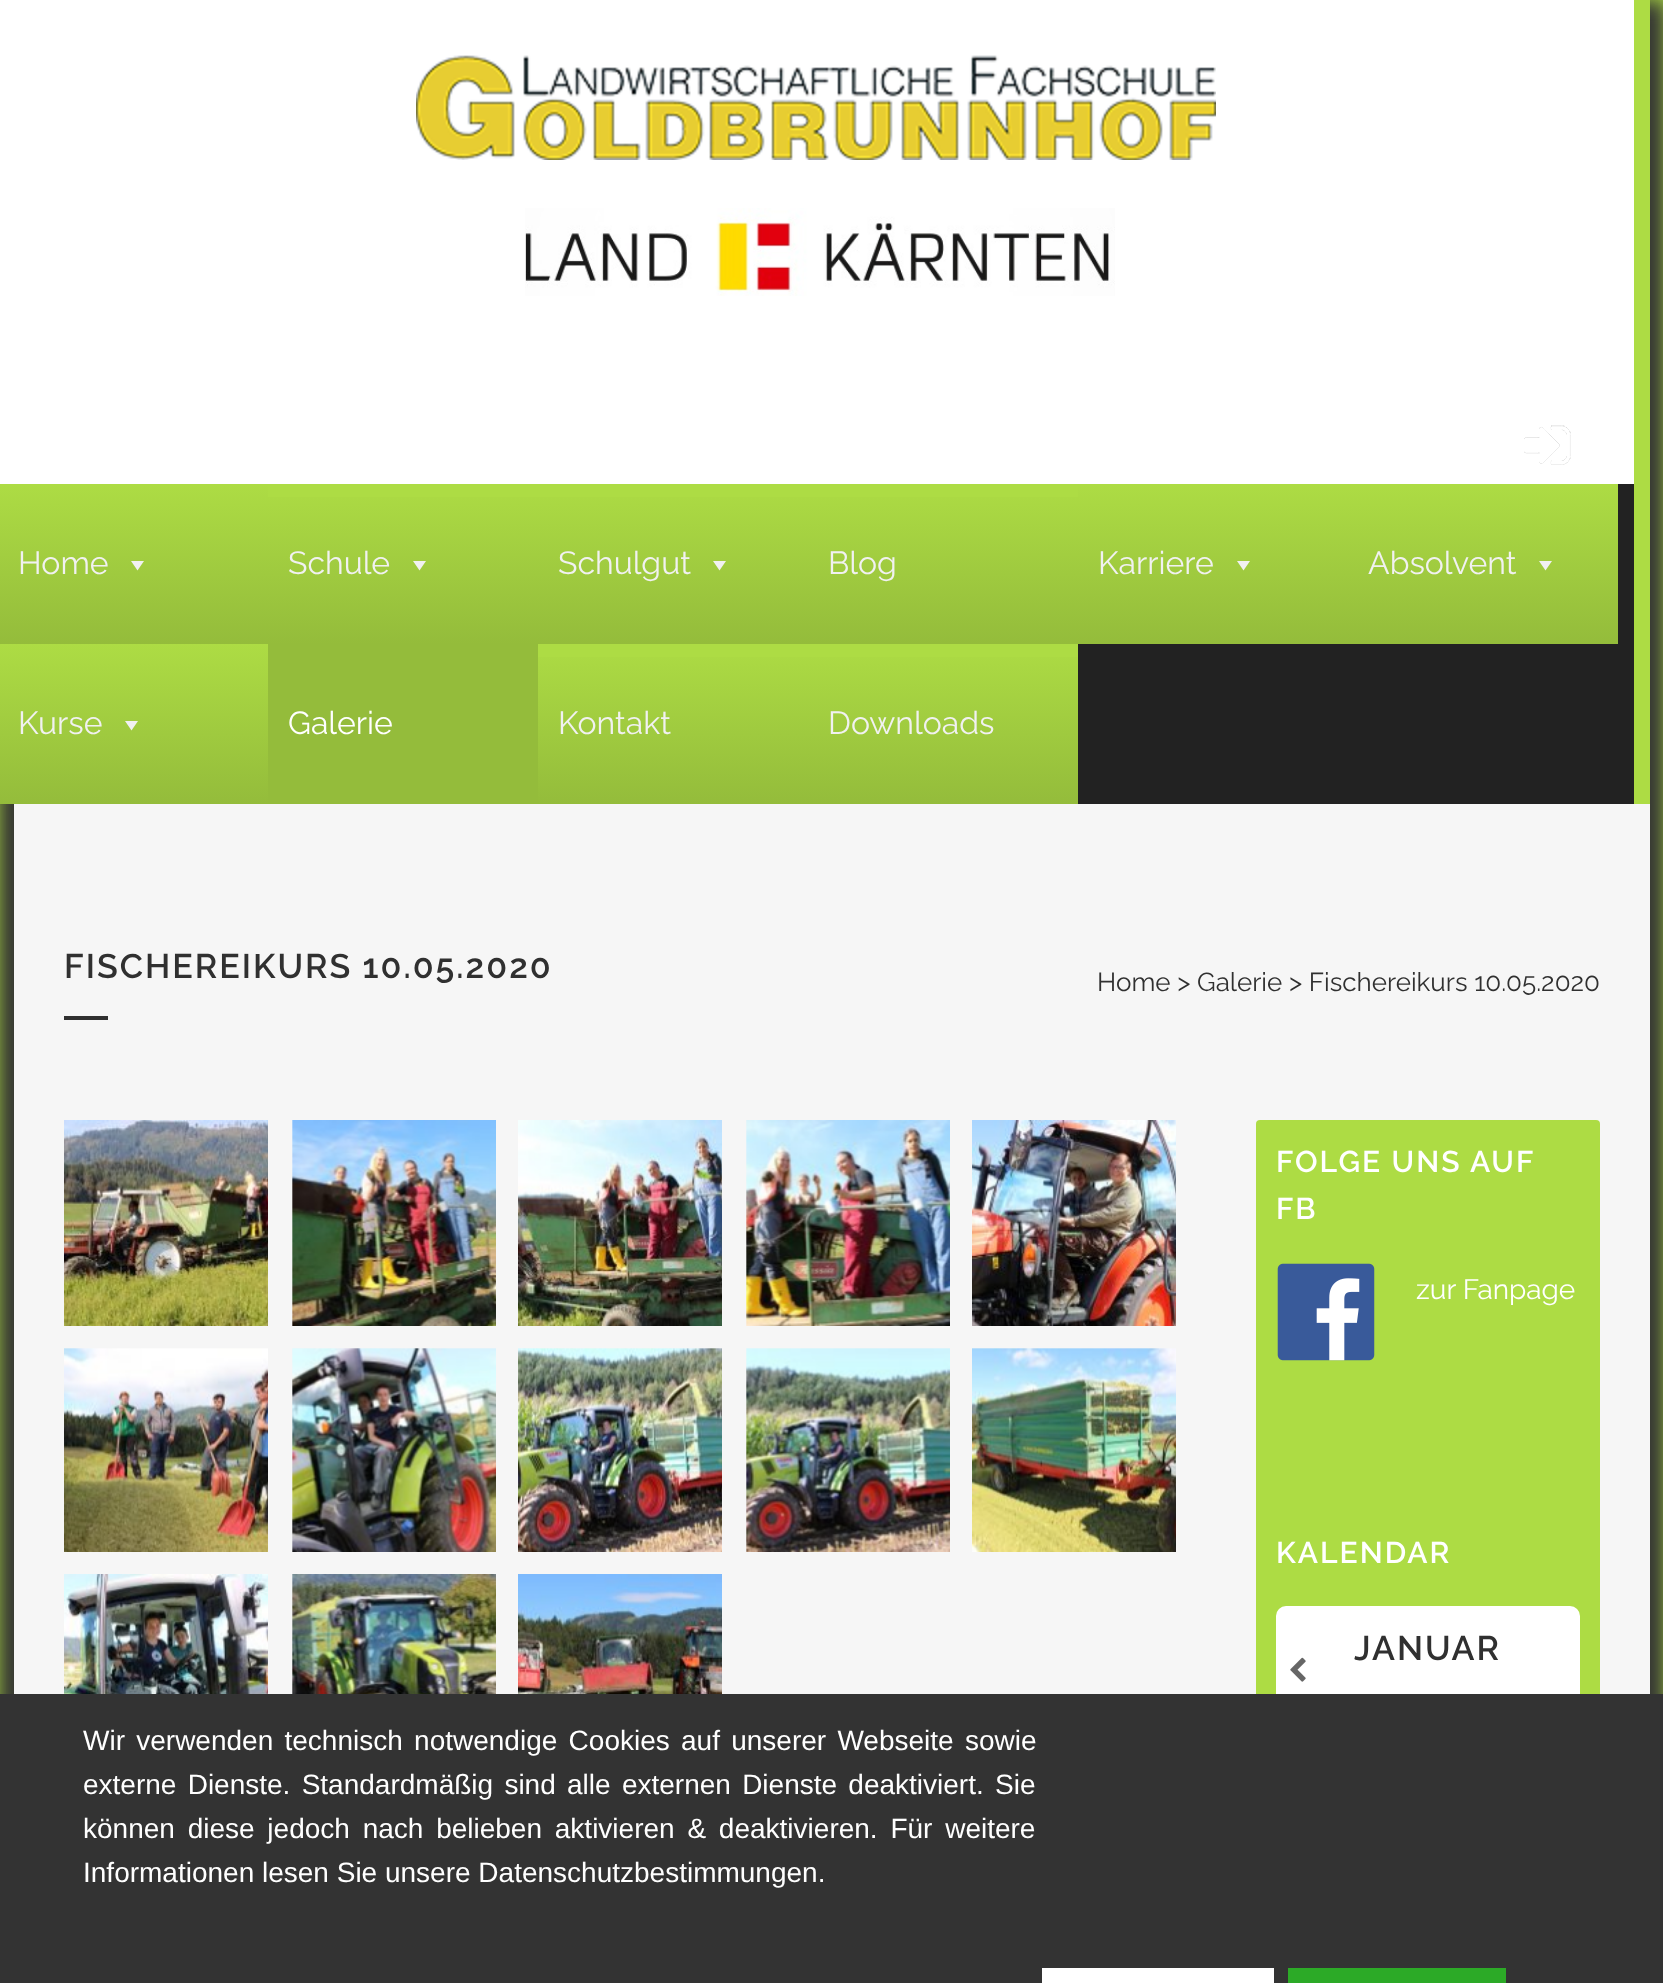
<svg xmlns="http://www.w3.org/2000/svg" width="1663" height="1983">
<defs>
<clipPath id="clip1"><path d="M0 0h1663v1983h-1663zm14 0h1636v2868h-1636z" clip-rule="evenodd"/></clipPath>
<linearGradient id="g1" gradientUnits="userSpaceOnUse" x1="133" y1="484" x2="133" y2="644"><stop offset="0" stop-color="#addc44"/><stop offset="1" stop-color="#94bc3b"/></linearGradient>
<linearGradient id="g2" gradientUnits="userSpaceOnUse" x1="403" y1="484" x2="403" y2="644"><stop offset="0" stop-color="#addc44"/><stop offset="1" stop-color="#94bc3b"/></linearGradient>
<linearGradient id="g3" gradientUnits="userSpaceOnUse" x1="673" y1="484" x2="673" y2="644"><stop offset="0" stop-color="#addc44"/><stop offset="1" stop-color="#94bc3b"/></linearGradient>
<linearGradient id="g4" gradientUnits="userSpaceOnUse" x1="943" y1="484" x2="943" y2="644"><stop offset="0" stop-color="#addc44"/><stop offset="1" stop-color="#94bc3b"/></linearGradient>
<linearGradient id="g5" gradientUnits="userSpaceOnUse" x1="1213" y1="484" x2="1213" y2="644"><stop offset="0" stop-color="#addc44"/><stop offset="1" stop-color="#94bc3b"/></linearGradient>
<linearGradient id="g6" gradientUnits="userSpaceOnUse" x1="1483" y1="484" x2="1483" y2="644"><stop offset="0" stop-color="#addc44"/><stop offset="1" stop-color="#94bc3b"/></linearGradient>
<linearGradient id="g7" gradientUnits="userSpaceOnUse" x1="133" y1="644" x2="133" y2="804"><stop offset="0" stop-color="#addc44"/><stop offset="1" stop-color="#94bc3b"/></linearGradient>
<linearGradient id="g8" gradientUnits="userSpaceOnUse" x1="673" y1="644" x2="673" y2="804"><stop offset="0" stop-color="#addc44"/><stop offset="1" stop-color="#94bc3b"/></linearGradient>
<linearGradient id="g9" gradientUnits="userSpaceOnUse" x1="943" y1="644" x2="943" y2="804"><stop offset="0" stop-color="#addc44"/><stop offset="1" stop-color="#94bc3b"/></linearGradient>
</defs>
<rect width="100%" height="100%" fill="#addc44"/>
<g clip-path="url(#clip1)">
<rect x="-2" width="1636" height="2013" fill="#333" filter="blur(10px)"/>
<rect x="30" width="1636" height="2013" fill="#333" filter="blur(10px)"/>
</g>
<rect width="1634" height="484" fill="#fff"/>
<image x="416" y="55" width="800" height="105" href="media/1.png"/>
<image x="525" y="208" width="590" height="88" href="media/2.png"/>
<image x="1524" y="425" width="47" height="40" href="media/3.png"/>
<rect x="1078" y="484" width="556" height="320" fill="#222"/>
<rect y="484" width="268" height="160" fill="url(#g1)"/>
<text x="18" y="574" style="font-family:Raleway;font-size:32px;fill:#f1f1f1">Home</text>
<path d="M144 561l-6.5 9.5l-6.5-9.5z" fill="#f1f1f1"/>
<rect x="268" y="497" width="270" height="147" fill="url(#g2)"/>
<text x="288" y="574" style="font-family:Raleway;font-size:32px;fill:#f1f1f1">Schule</text>
<path d="M426 561l-6.5 9.5l-6.5-9.5z" fill="#f1f1f1"/>
<rect x="538" y="497" width="270" height="147" fill="url(#g3)"/>
<text x="558" y="574" style="font-family:Raleway;font-size:32px;fill:#f1f1f1">Schulgut</text>
<path d="M726 561l-6.5 9.5l-6.5-9.5z" fill="#f1f1f1"/>
<rect x="808" y="497" width="270" height="147" fill="url(#g4)"/>
<text x="828" y="574" style="font-family:Raleway;font-size:32px;fill:#f1f1f1">Blog</text>
<rect x="1078" y="484" width="270" height="160" fill="url(#g5)"/>
<text x="1098" y="574" style="font-family:Raleway;font-size:32px;fill:#f1f1f1">Karriere</text>
<path d="M1250 561l-6.5 9.5l-6.5-9.5z" fill="#f1f1f1"/>
<rect x="1348" y="484" width="270" height="160" fill="url(#g6)"/>
<text x="1368" y="574" style="font-family:Raleway;font-size:32px;fill:#f1f1f1">Absolvent</text>
<path d="M1552 561l-6.5 9.5l-6.5-9.5z" fill="#f1f1f1"/>
<rect y="644" width="268" height="160" fill="url(#g7)"/>
<text x="18" y="734" style="font-family:Raleway;font-size:32px;fill:#f1f1f1">Kurse</text>
<path d="M138 721l-6.5 9.5l-6.5-9.5z" fill="#f1f1f1"/>
<rect x="268" y="644" width="270" height="160" fill="#94bc3b"/>
<text x="288" y="734" style="font-family:Raleway;font-size:32px;fill:#fff">Galerie</text>
<rect x="538" y="657" width="270" height="147" fill="url(#g8)"/>
<text x="558" y="734" style="font-family:Raleway;font-size:32px;fill:#f1f1f1">Kontakt</text>
<rect x="808" y="657" width="270" height="147" fill="url(#g9)"/>
<text x="828" y="734" style="font-family:Raleway;font-size:32px;fill:#f1f1f1">Downloads</text>
<rect x="14" y="804" width="1636" height="890" fill="#f6f6f6"/>
<text x="64" y="978" style="font-family:Raleway;font-size:34px;font-weight:600;letter-spacing:2px;fill:#303030">FISCHEREIKURS 10.05.2020</text>
<text x="1097" y="991" style="font-family:Raleway;font-size:26px;fill:#303030">Home &gt; Galerie &gt; Fischereikurs 10.05.2020</text>
<rect x="64" y="1016" width="44" height="4" fill="#303030"/>
<image x="64" y="1120" width="204" height="206" href="media/4.png"/>
<image x="292" y="1120" width="204" height="206" href="media/5.png"/>
<image x="518" y="1120" width="204" height="206" href="media/6.png"/>
<image x="746" y="1120" width="204" height="206" href="media/7.png"/>
<image x="972" y="1120" width="204" height="206" href="media/8.png"/>
<image x="64" y="1348" width="204" height="204" href="media/9.png"/>
<image x="292" y="1348" width="204" height="204" href="media/10.png"/>
<image x="518" y="1348" width="204" height="204" href="media/11.png"/>
<image x="746" y="1348" width="204" height="204" href="media/12.png"/>
<image x="972" y="1348" width="204" height="204" href="media/13.png"/>
<image x="64" y="1574" width="204" height="120" href="media/14.png"/>
<image x="292" y="1574" width="204" height="120" href="media/15.png"/>
<image x="518" y="1574" width="204" height="120" href="media/16.png"/>
<rect x="1256" y="1120" width="344" height="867" rx="4" fill="#addc44"/>
<text x="1276" y="1172" style="font-family:Raleway;font-size:30px;font-weight:600;letter-spacing:2px;fill:#fff">FOLGE UNS AUF</text>
<text x="1276" y="1219" style="font-family:Raleway;font-size:30px;font-weight:600;letter-spacing:2px;fill:#fff">FB</text>
<image x="1277" y="1263" width="98" height="98" href="media/17.png"/>
<text x="1416" y="1299" style="font-family:Raleway;font-size:28px;fill:#fff">zur Fanpage</text>
<text x="1276" y="1563" style="font-family:Raleway;font-size:30px;font-weight:600;letter-spacing:2px;fill:#fff">KALENDAR</text>
<rect x="1276" y="1606" width="304" height="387" rx="10" fill="#fff"/>
<text x="1354" y="1660" style="font-family:Raleway;font-size:34px;font-weight:600;letter-spacing:2px;fill:#303030">JANUAR</text>
<image x="1290" y="1657" width="16" height="25" href="media/18.png"/>
<rect y="1694" width="1663" height="289" fill="#333"/>
<text x="83" y="1750" word-spacing="3.5" style="font-family:Liberation Sans;font-size:28px;fill:#fff">Wir verwenden technisch notwendige Cookies auf unserer Webseite sowie</text>
<text x="83" y="1794" word-spacing="3.5" style="font-family:Liberation Sans;font-size:28px;fill:#fff">externe Dienste. Standardmäßig sind alle externen Dienste deaktiviert. Sie</text>
<text x="83" y="1838" word-spacing="5" style="font-family:Liberation Sans;font-size:28px;fill:#fff">können diese jedoch nach belieben aktivieren &amp; deaktivieren. Für weitere</text>
<text x="83" y="1882" style="font-family:Liberation Sans;font-size:28px;fill:#fff">Informationen lesen Sie unsere Datenschutzbestimmungen.</text>
<rect x="1042" y="1968" width="232" height="15" fill="#fff"/>
<rect x="1288" y="1968" width="218" height="15" fill="#2caa27"/>
</svg>
